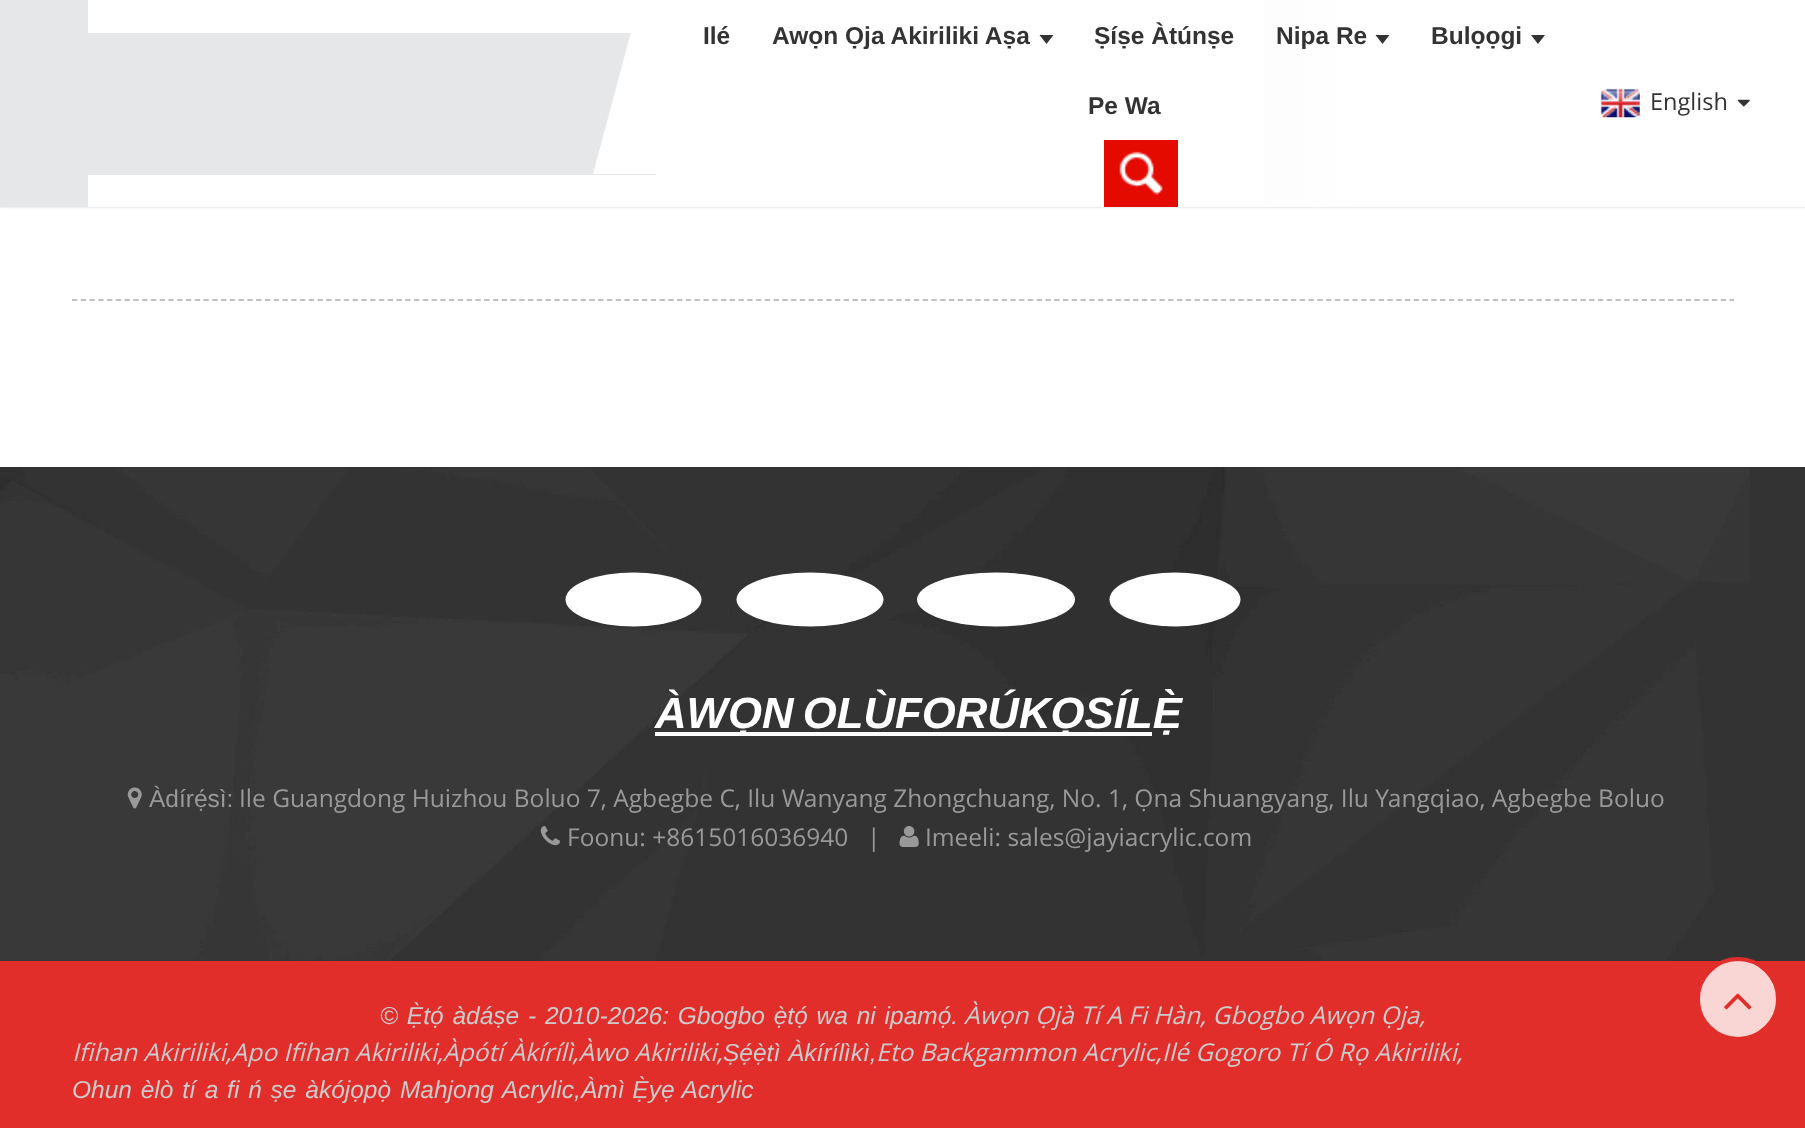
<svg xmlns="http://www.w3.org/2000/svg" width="1805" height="1128">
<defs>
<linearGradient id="g1" gradientUnits="userSpaceOnUse" x1="0" y1="103" x2="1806" y2="103"><stop offset="0.25" stop-color="#e6e7e8"/><stop offset="0.75" stop-color="#fff"/></linearGradient>
</defs>
<rect width="100%" height="100%" fill="#fff"/>
<rect width="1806" height="207" fill="#00000033" filter="blur(1px)"/>
<rect width="1805" height="207" fill="url(#g1)"/>
<rect x="88" width="1176" height="207" fill="#fff"/>
<rect x="88" y="33" width="568" height="142" fill="#e6e7e8"/>
<path d="M631 32h79l-38 142h-79z" fill="#fff"/>
<text x="703" y="44" style="font-family:Liberation Sans;font-size:24.5px;font-weight:bold;fill:#333">Ilé</text>
<text x="772" y="44" style="font-family:Liberation Sans;font-size:24.5px;font-weight:bold;fill:#333">Awọn Ọja Akiriliki Aṣa</text>
<path d="M1039.5 35h14l-7 9z" fill="#333"/>
<text x="1094" y="44" style="font-family:Liberation Sans;font-size:24.5px;font-weight:bold;fill:#333">Ṣíṣe Àtúnṣe</text>
<text x="1276" y="44" style="font-family:Liberation Sans;font-size:24.5px;font-weight:bold;fill:#333">Nipa Re</text>
<path d="M1375.5 35h14l-7 9z" fill="#333"/>
<text x="1431" y="44" style="font-family:Liberation Sans;font-size:24.5px;font-weight:bold;fill:#333">Bulọọgi</text>
<path d="M1531 35h14l-7 9z" fill="#333"/>
<text x="1088" y="114" style="font-family:Liberation Sans;font-size:24.5px;font-weight:bold;fill:#333">Pe Wa</text>
<rect x="1104" y="140" width="74" height="67" fill="#e50a00"/>
<image x="1119" y="151" width="44" height="44" href="media/1.png"/>
<image x="1600" y="88" width="40" height="30" href="media/2.png"/>
<text x="1650" y="110" style="font-family:Open Sans;font-size:23.5px;fill:#333">English</text>
<image x="1737" y="99" width="13" height="8" href="media/3.png"/>
<path d="M72 300h1662" fill="none" stroke="#c1c1c1" stroke-width="1.8" stroke-dasharray="5.25 3.52"/>
<rect y="467" width="1805" height="494" fill="#333"/>
<image x="0" y="467" width="1750" height="494" href="media/4.png"/>
<ellipse cx="633.5" cy="599.5" rx="68" ry="27" fill="#fff"/>
<ellipse cx="810" cy="599.5" rx="73.5" ry="27" fill="#fff"/>
<ellipse cx="996" cy="599.5" rx="79" ry="27" fill="#fff"/>
<ellipse cx="1175" cy="599.5" rx="65.5" ry="27" fill="#fff"/>
<rect x="655" y="732" width="497" height="4" fill="#fff"/>
<text x="655" y="728" word-spacing="-3" style="font-family:Liberation Sans;font-size:43.75px;font-weight:bold;font-style:italic;fill:#fff">ÀWỌN OLÙFORÚKỌSÍLẸ̀</text>
<image x="127" y="787" width="15" height="22" href="media/5.png"/>
<text x="149" y="807" style="font-family:Liberation Sans;font-size:24.5px;fill:#999">Àdírẹ́sì:</text>
<text x="239" y="807" style="font-family:Open Sans;font-size:24.5px;fill:#999">Ile Guangdong Huizhou Boluo 7, Agbegbe C, Ilu Wanyang Zhongchuang, No. 1, Ọna Shuangyang, Ilu Yangqiao, Agbegbe Boluo</text>
<image x="540" y="826" width="20" height="20" href="media/6.png"/>
<text x="567" y="846" style="font-family:Open Sans;font-size:24.5px;fill:#999">Foonu: +8615016036940</text>
<text x="867" y="846" style="font-family:Open Sans;font-size:24.5px;fill:#999">|</text>
<image x="899" y="826" width="20" height="21" href="media/7.png"/>
<text x="925" y="846" style="font-family:Open Sans;font-size:24.5px;fill:#999">Imeeli: sales@jayiacrylic.com</text>
<rect y="961" width="1805" height="167" fill="#e22e2b"/>
<text x="380" y="1024" word-spacing="2" style="font-family:Liberation Sans;font-size:24.5px;font-style:italic;fill:#ccc">© Ẹ̀tọ́ àdáṣe - 2010-2026: Gbogbo ẹ̀tọ́ wa ni ipamọ́.</text>
<text x="964" y="1024" style="font-family:Open Sans;font-size:24.5px;font-style:italic;fill:#ccc">Àwọn Ọjà Tí A Fi Hàn, Gbogbo Awọn Ọja,</text>
<text x="72" y="1061" style="font-family:Open Sans;font-size:24.5px;font-style:italic;fill:#ccc">Ifihan Akiriliki,Apo Ifihan Akiriliki,Àpótí Àkírílì,Àwo Akiriliki,</text>
<text x="723" y="1061" word-spacing="1" style="font-family:Liberation Sans;font-size:24.5px;font-style:italic;fill:#ccc">Ṣẹ́ẹ̀tì Àkírílìkì,</text>
<text x="876" y="1061" style="font-family:Open Sans;font-size:24.5px;font-style:italic;fill:#ccc">Eto Backgammon Acrylic,Ilé Gogoro Tí Ó Rọ Akiriliki,</text>
<text x="72" y="1098" word-spacing="2" style="font-family:Liberation Sans;font-size:24.5px;font-style:italic;fill:#ccc">Ohun èlò tí a fi ń ṣe àkójọpọ̀ Mahjong Acrylic,</text>
<text x="581" y="1098" word-spacing="1" style="font-family:Liberation Sans;font-size:24.5px;font-style:italic;fill:#ccc">Àmì Ẹ̀yẹ Acrylic</text>
<circle cx="1738" cy="999" r="40" fill="#ffffffcc" stroke="#e22e2b" stroke-width="4"/>
<image x="1724" y="993" width="28" height="17" href="media/8.png"/>
</svg>
